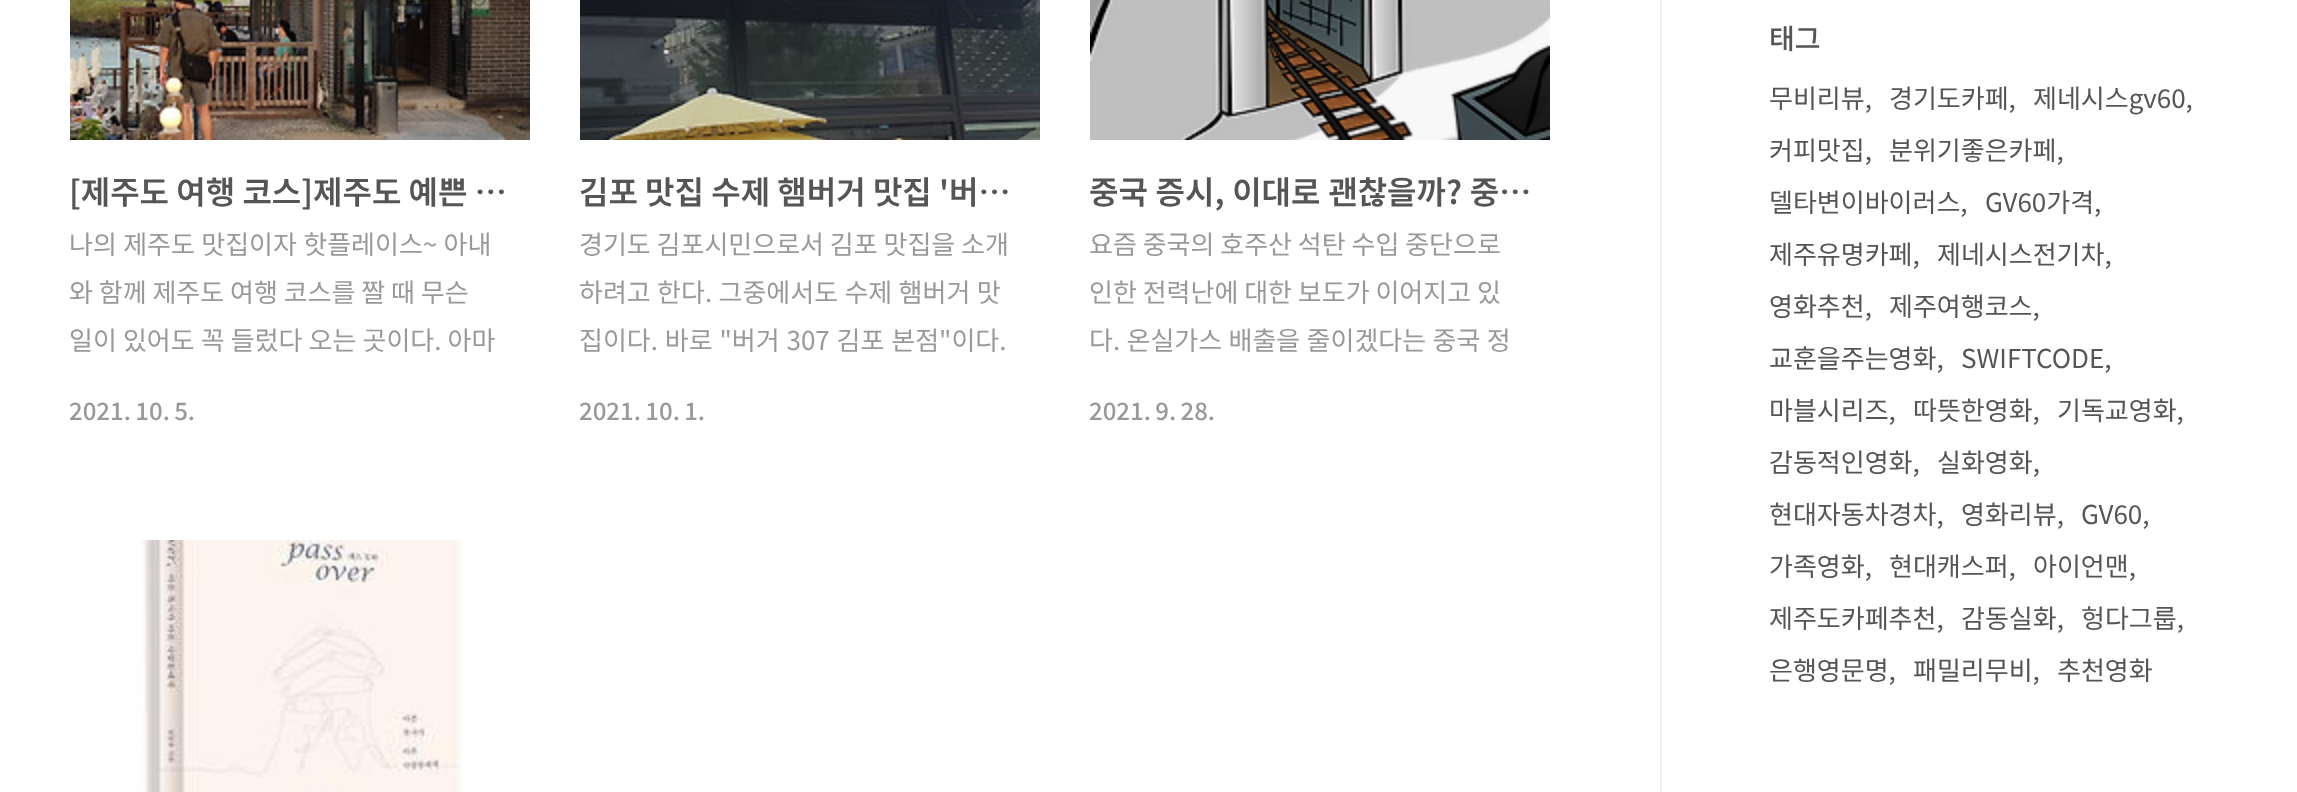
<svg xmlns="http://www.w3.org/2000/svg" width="2297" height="792">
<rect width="100%" height="100%" fill="#fff"/>
<image x="70" y="0" width="460" height="140" href="media/1.png"/>
<text x="69" y="204" style="font-family:Noto Sans KR;font-size:32px;font-weight:600;fill:#555">[제주도 여행 코스]제주도 예쁜 …</text>
<text x="69" y="254" word-spacing="0.5" style="font-family:Noto Sans KR;font-size:26px;fill:#999">나의 제주도 맛집이자 핫플레이스~ 아내</text>
<text x="69" y="302" style="font-family:Noto Sans KR;font-size:26px;fill:#999">와 함께 제주도 여행 코스를 짤 때 무슨</text>
<text x="69" y="350" word-spacing="0.25" style="font-family:Noto Sans KR;font-size:26px;fill:#999">일이 있어도 꼭 들렀다 오는 곳이다. 아마</text>
<text x="69" y="420" word-spacing="-1" style="font-family:Noto Sans KR;font-size:24px;font-weight:500;fill:#999">2021. 10. 5.</text>
<image x="580" y="0" width="460" height="140" href="media/2.png"/>
<text x="579" y="204" style="font-family:Noto Sans KR;font-size:32px;font-weight:600;fill:#555">김포 맛집 수제 햄버거 맛집 '버…</text>
<text x="579" y="254" style="font-family:Noto Sans KR;font-size:26px;fill:#999">경기도 김포시민으로서 김포 맛집을 소개</text>
<text x="579" y="302" word-spacing="0.5" style="font-family:Noto Sans KR;font-size:26px;fill:#999">하려고 한다. 그중에서도 수제 햄버거 맛</text>
<text x="579" y="350" word-spacing="1" style="font-family:Noto Sans KR;font-size:26px;fill:#999">집이다. 바로 "버거 307 김포 본점"이다.</text>
<text x="579" y="420" word-spacing="-1" style="font-family:Noto Sans KR;font-size:24px;font-weight:500;fill:#999">2021. 10. 1.</text>
<rect x="1278" y="12" width="272" height="128" fill="#f8f8f8"/>
<image x="1090" y="0" width="460" height="140" href="media/3.png"/>
<text x="1089" y="204" word-spacing="0.5" style="font-family:Noto Sans KR;font-size:32px;font-weight:600;fill:#555">중국 증시, 이대로 괜찮을까? 중…</text>
<text x="1089" y="254" style="font-family:Noto Sans KR;font-size:26px;fill:#999">요즘 중국의 호주산 석탄 수입 중단으로</text>
<text x="1089" y="302" style="font-family:Noto Sans KR;font-size:26px;fill:#999">인한 전력난에 대한 보도가 이어지고 있</text>
<text x="1089" y="350" word-spacing="0.5" style="font-family:Noto Sans KR;font-size:26px;fill:#999">다. 온실가스 배출을 줄이겠다는 중국 정</text>
<text x="1089" y="420" word-spacing="-1" style="font-family:Noto Sans KR;font-size:24px;font-weight:500;fill:#999">2021. 9. 28.</text>
<image x="70" y="540" width="460" height="252" href="media/4.png"/>
<rect x="1660" width="2" height="792" fill="#eee"/>
<text x="1769" y="49" style="font-family:Noto Sans KR;font-size:28px;font-weight:500;fill:#555">태그</text>
<text x="1769" y="108" style="font-family:Noto Sans KR;font-size:26px;fill:#555">무비리뷰,</text>
<text x="1889" y="108" style="font-family:Noto Sans KR;font-size:26px;fill:#555">경기도카페,</text>
<text x="2033" y="108" style="font-family:Noto Sans KR;font-size:26px;fill:#555">제네시스gv60,</text>
<text x="1769" y="160" style="font-family:Noto Sans KR;font-size:26px;fill:#555">커피맛집,</text>
<text x="1889" y="160" style="font-family:Noto Sans KR;font-size:26px;fill:#555">분위기좋은카페,</text>
<text x="1769" y="212" style="font-family:Noto Sans KR;font-size:26px;fill:#555">델타변이바이러스,</text>
<text x="1985" y="212" style="font-family:Noto Sans KR;font-size:26px;fill:#555">GV60가격,</text>
<text x="1769" y="264" style="font-family:Noto Sans KR;font-size:26px;fill:#555">제주유명카페,</text>
<text x="1937" y="264" style="font-family:Noto Sans KR;font-size:26px;fill:#555">제네시스전기차,</text>
<text x="1769" y="316" style="font-family:Noto Sans KR;font-size:26px;fill:#555">영화추천,</text>
<text x="1889" y="316" style="font-family:Noto Sans KR;font-size:26px;fill:#555">제주여행코스,</text>
<text x="1769" y="368" style="font-family:Noto Sans KR;font-size:26px;fill:#555">교훈을주는영화,</text>
<text x="1961" y="368" style="font-family:Noto Sans KR;font-size:26px;fill:#555">SWIFTCODE,</text>
<text x="1769" y="420" style="font-family:Noto Sans KR;font-size:26px;fill:#555">마블시리즈,</text>
<text x="1913" y="420" style="font-family:Noto Sans KR;font-size:26px;fill:#555">따뜻한영화,</text>
<text x="2057" y="420" style="font-family:Noto Sans KR;font-size:26px;fill:#555">기독교영화,</text>
<text x="1769" y="472" style="font-family:Noto Sans KR;font-size:26px;fill:#555">감동적인영화,</text>
<text x="1937" y="472" style="font-family:Noto Sans KR;font-size:26px;fill:#555">실화영화,</text>
<text x="1769" y="524" style="font-family:Noto Sans KR;font-size:26px;fill:#555">현대자동차경차,</text>
<text x="1961" y="524" style="font-family:Noto Sans KR;font-size:26px;fill:#555">영화리뷰,</text>
<text x="2081" y="524" style="font-family:Noto Sans KR;font-size:26px;fill:#555">GV60,</text>
<text x="1769" y="576" style="font-family:Noto Sans KR;font-size:26px;fill:#555">가족영화,</text>
<text x="1889" y="576" style="font-family:Noto Sans KR;font-size:26px;fill:#555">현대캐스퍼,</text>
<text x="2033" y="576" style="font-family:Noto Sans KR;font-size:26px;fill:#555">아이언맨,</text>
<text x="1769" y="628" style="font-family:Noto Sans KR;font-size:26px;fill:#555">제주도카페추천,</text>
<text x="1961" y="628" style="font-family:Noto Sans KR;font-size:26px;fill:#555">감동실화,</text>
<text x="2081" y="628" style="font-family:Noto Sans KR;font-size:26px;fill:#555">헝다그룹,</text>
<text x="1769" y="680" style="font-family:Noto Sans KR;font-size:26px;fill:#555">은행영문명,</text>
<text x="1913" y="680" style="font-family:Noto Sans KR;font-size:26px;fill:#555">패밀리무비,</text>
<text x="2057" y="680" style="font-family:Noto Sans KR;font-size:26px;fill:#555">추천영화</text>
</svg>
